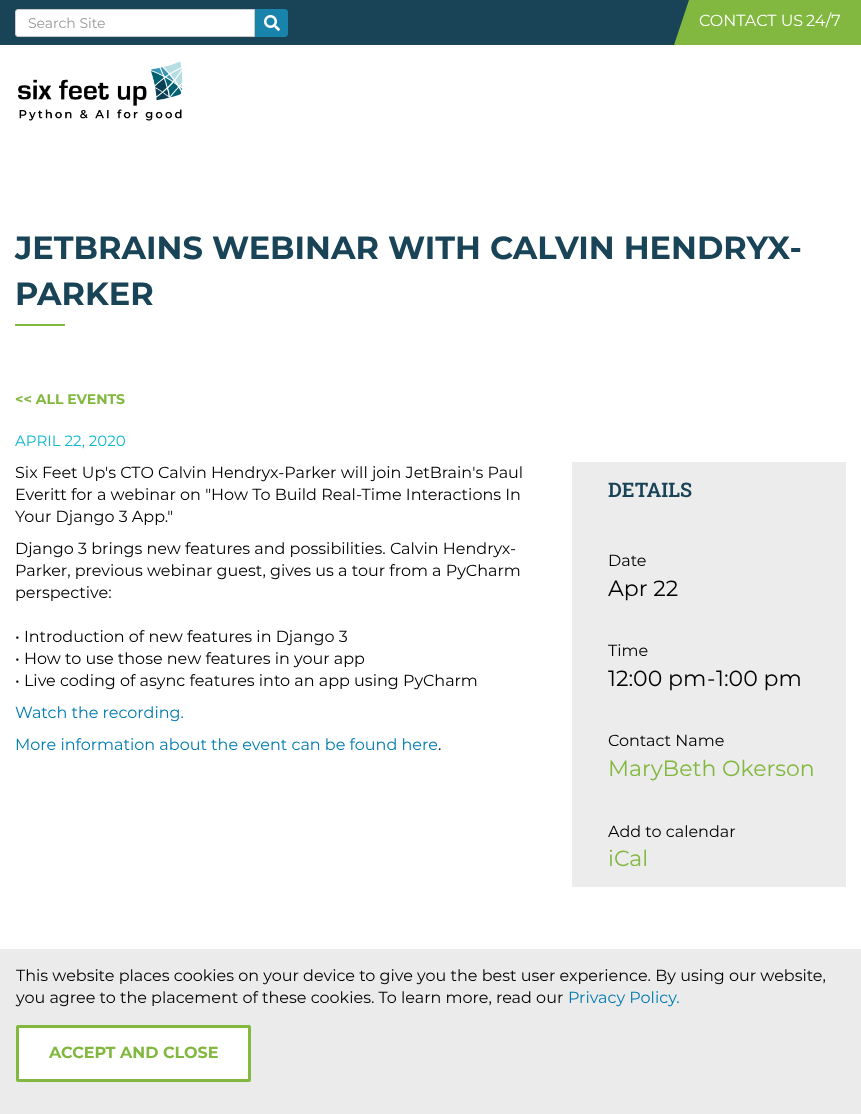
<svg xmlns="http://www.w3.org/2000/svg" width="861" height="1114">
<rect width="100%" height="100%" fill="#fff"/>
<rect width="689" height="45" fill="#194457"/>
<path d="M18 9.5h236.5v27h-236.5c-1.5 0-2.5-1-2.5-2.5v-22c0-1.5 1-2.5 2.5-2.5z" fill="#fff" stroke="#ccc"/>
<text x="28" y="28" style="font-family:Montserrat;font-size:14px;fill:#999">Search Site</text>
<path d="M255 9h30c1.5 0 3 1.5 3 3v22c0 1.5-1.5 3-3 3h-30z" fill="#1884ab"/>
<image x="264" y="15" width="16" height="16" href="media/1.png"/>
<path d="M689 0l-15 45h187v-45z" fill="#82b840"/>
<text x="699" y="26" style="font-family:Montserrat;font-size:16px;fill:#fff">CONTACT US</text>
<text x="806" y="26" style="font-family:Montserrat;font-size:16px;fill:#fff">24/7</text>
<image x="18" y="61" width="165" height="60" href="media/2.png"/>
<text x="15" y="259" style="font-family:Montserrat;font-size:32px;font-weight:bold;fill:#194457">JETBRAINS WEBINAR WITH CALVIN HENDRYX-</text>
<text x="15" y="305" style="font-family:Montserrat;font-size:32px;font-weight:bold;fill:#194457">PARKER</text>
<rect x="15" y="324" width="50" height="2" fill="#82b840"/>
<text x="15" y="404" style="font-family:Montserrat;font-size:14px;font-weight:bold;fill:#82b840">&lt;&lt; ALL EVENTS</text>
<text x="15" y="446" style="font-family:Montserrat;font-size:15px;fill:#0db7cf">APRIL 22, 2020</text>
<text x="15" y="478" style="font-family:Montserrat;font-size:16px;fill:#000">Six Feet Up's CTO Calvin Hendryx-Parker will join JetBrain's Paul</text>
<text x="15" y="500" style="font-family:Montserrat;font-size:16px;fill:#000">Everitt for a webinar on "How To Build Real-Time Interactions In</text>
<text x="15" y="522" style="font-family:Montserrat;font-size:16px;fill:#000">Your Django 3 App."</text>
<text x="15" y="554" style="font-family:Montserrat;font-size:16px;fill:#000">Django 3 brings new features and possibilities. Calvin Hendryx-</text>
<text x="15" y="576" style="font-family:Montserrat;font-size:16px;fill:#000">Parker, previous webinar guest, gives us a tour from a PyCharm</text>
<text x="15" y="598" style="font-family:Montserrat;font-size:16px;fill:#000">perspective:</text>
<text x="15" y="642" style="font-family:Montserrat;font-size:16px;fill:#000">• Introduction of new features in Django 3</text>
<text x="15" y="664" style="font-family:Montserrat;font-size:16px;fill:#000">• How to use those new features in your app</text>
<text x="15" y="686" style="font-family:Montserrat;font-size:16px;fill:#000">• Live coding of async features into an app using PyCharm</text>
<text x="15" y="718" style="font-family:Montserrat;font-size:16px;fill:#007bb1">Watch the recording.</text>
<text x="15" y="750" style="font-family:Montserrat;font-size:16px;fill:#007bb1">More information about the event can be found here</text>
<text x="438" y="750" style="font-family:Montserrat;font-size:16px;fill:#000">.</text>
<rect x="572" y="462" width="274" height="425" fill="#ececec"/>
<text x="608" y="497" style="font-family:Roboto Slab;font-size:20px;font-weight:600;fill:#194457">DETAILS</text>
<text x="608" y="566" style="font-family:Montserrat;font-size:16px;fill:#000">Date</text>
<text x="608" y="596" style="font-family:Montserrat;font-size:22px;fill:#000">Apr 22</text>
<text x="608" y="656" style="font-family:Montserrat;font-size:16px;fill:#000">Time</text>
<text x="608" y="686" style="font-family:Montserrat;font-size:22px;fill:#000">12:00 pm</text>
<text x="707" y="686" style="font-family:Montserrat;font-size:22px;fill:#000">-</text>
<text x="716" y="686" style="font-family:Montserrat;font-size:22px;fill:#000">1:00 pm</text>
<text x="608" y="746" style="font-family:Montserrat;font-size:16px;fill:#000">Contact Name</text>
<text x="608" y="776" style="font-family:Montserrat;font-size:22px;fill:#82b840">MaryBeth Okerson</text>
<text x="608" y="837" style="font-family:Montserrat;font-size:16px;fill:#000">Add to calendar</text>
<text x="608" y="866" style="font-family:Montserrat;font-size:22px;fill:#82b840">iCal</text>
<rect y="949" width="861" height="165" fill="#ebebeb"/>
<text x="16" y="981" style="font-family:Montserrat;font-size:16px;fill:#000">This website places cookies on your device to give you the best user experience. By using our website,</text>
<text x="16" y="1003" style="font-family:Montserrat;font-size:16px;fill:#000">you agree to the placement of these cookies. To learn more, read our</text>
<text x="568" y="1003" style="font-family:Montserrat;font-size:16px;fill:#007bb1">Privacy Policy.</text>
<rect x="17.5" y="1026.5" width="232" height="54" rx="0.5" fill="#fff" stroke="#82b840" stroke-width="3"/>
<text x="49" y="1058" style="font-family:Montserrat;font-size:16px;font-weight:bold;fill:#82b840">ACCEPT AND CLOSE</text>
</svg>
